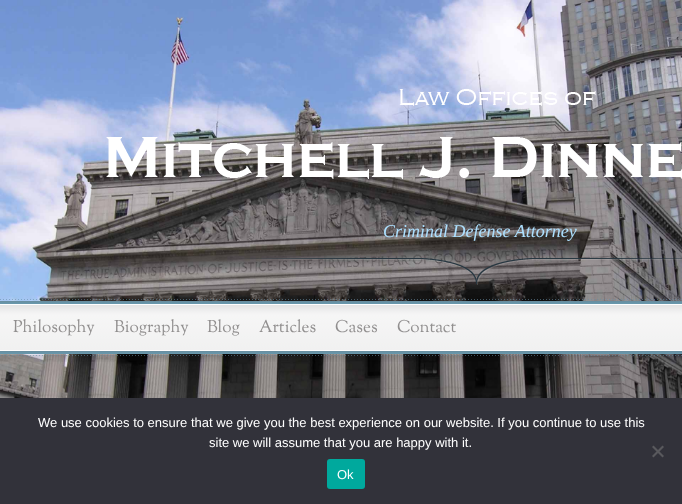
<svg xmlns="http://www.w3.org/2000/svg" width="682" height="504">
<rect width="100%" height="100%" fill="#fff"/>
<image x="0" y="0" width="682" height="398" href="media/1.png"/>
<image x="106" y="89" width="576" height="90" href="media/2.png"/>
<image x="241" y="258" width="441" height="27" href="media/3.png"/>
<text x="383" y="237" style="font-family:Liberation Serif;font-size:18px;font-style:italic;fill:#ade0ff">Criminal Defense Attorney</text>
<image x="0" y="299" width="682" height="63" href="media/4.png"/>
<text x="13" y="332" style="font-family:OFL Sorts Mill Goudy TT;font-size:17px;font-weight:500;fill:#918f8f">Philosophy</text>
<text x="114" y="332" style="font-family:OFL Sorts Mill Goudy TT;font-size:17px;font-weight:500;fill:#918f8f">Biography</text>
<text x="207" y="332" style="font-family:OFL Sorts Mill Goudy TT;font-size:17px;font-weight:500;fill:#918f8f">Blog</text>
<text x="259" y="332" style="font-family:OFL Sorts Mill Goudy TT;font-size:17px;font-weight:500;fill:#918f8f">Articles</text>
<text x="335" y="332" style="font-family:OFL Sorts Mill Goudy TT;font-size:17px;font-weight:500;fill:#918f8f">Cases</text>
<text x="397" y="332" style="font-family:OFL Sorts Mill Goudy TT;font-size:17px;font-weight:500;fill:#918f8f">Contact</text>
<rect y="398" width="682" height="106" fill="#32323a"/>
<text x="38" y="427" style="font-family:Liberation Sans;font-size:13px;fill:#fff">We use cookies to ensure that we give you the best experience on our website. If you continue to use this</text>
<text x="209" y="447" style="font-family:Liberation Sans;font-size:13px;fill:#fff">site we will assume that you are happy with it.</text>
<path d="M662.5 445.5l1.5 1.5l-10.5 10.5l-1.5-1.5z" fill="#59595d"/>
<path d="M652 447l1.5-1.5l10.5 10.5l-1.5 1.5z" fill="#59595d"/>
<rect x="327" y="459" width="38" height="30" rx="3" fill="#00a99d"/>
<text x="337" y="479" style="font-family:Liberation Sans;font-size:13px;fill:#fff">Ok</text>
</svg>
